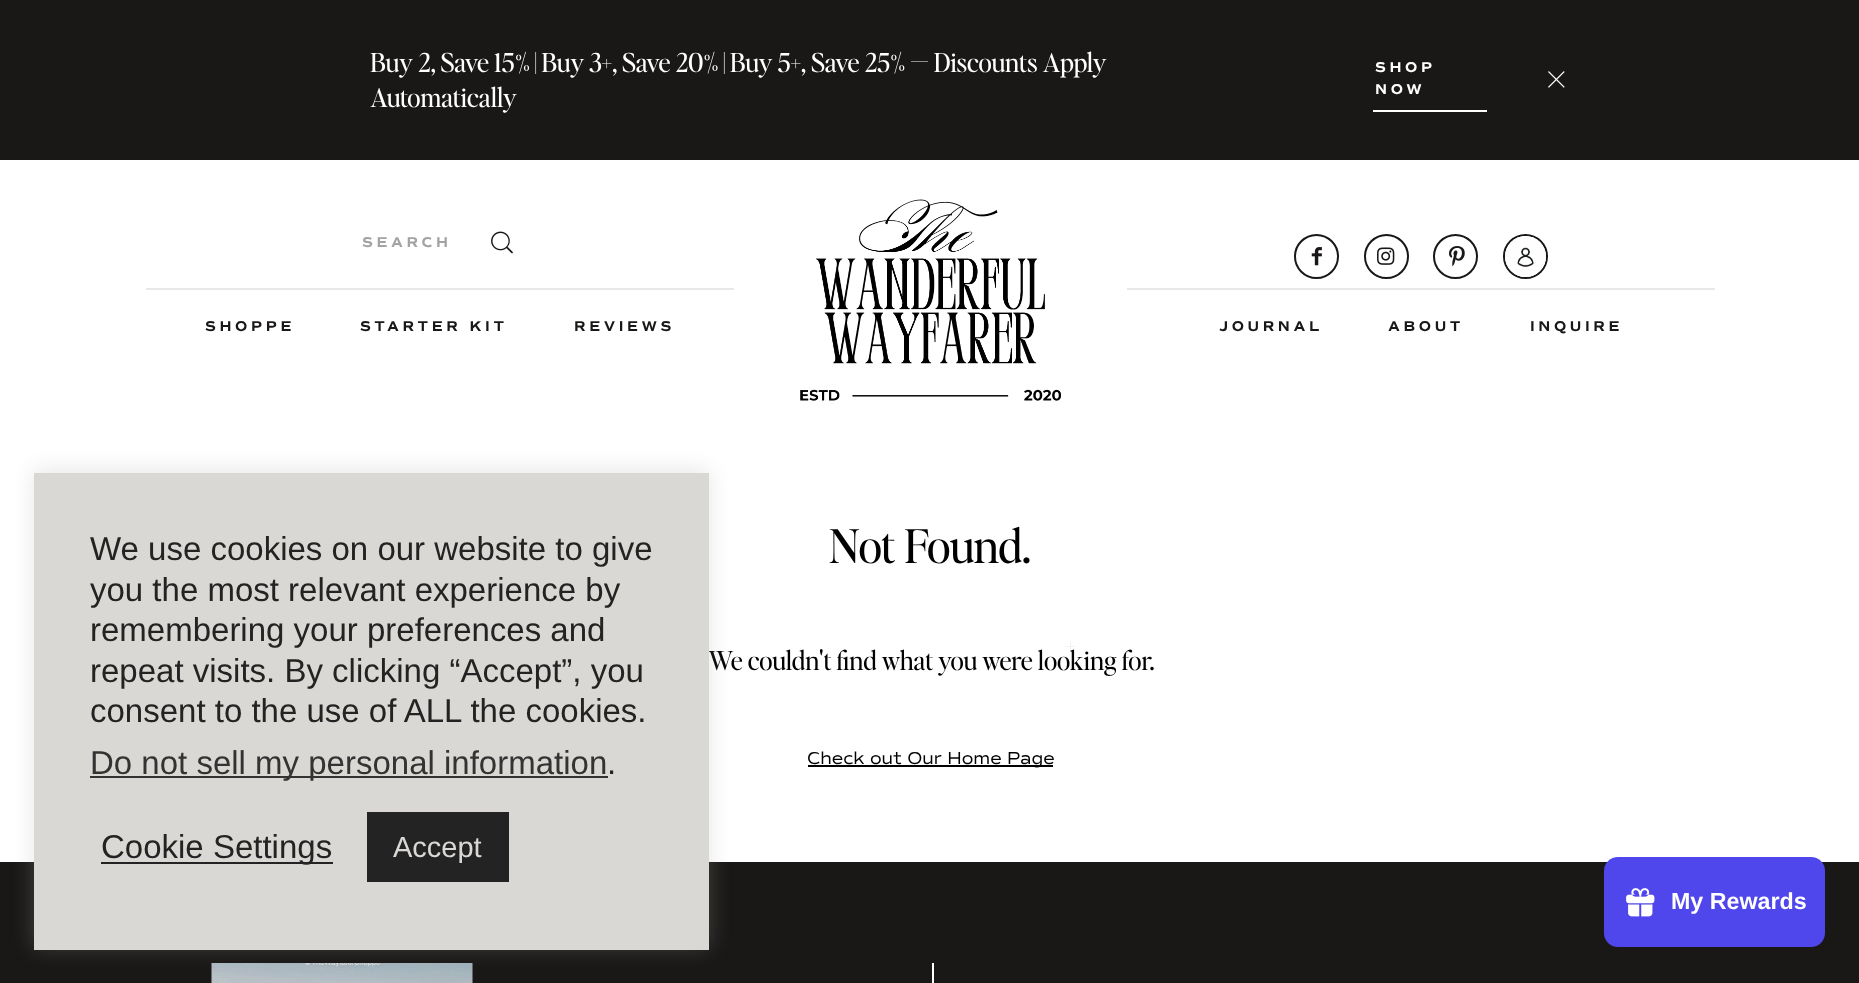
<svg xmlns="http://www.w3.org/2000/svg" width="1859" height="983">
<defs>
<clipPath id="clip1"><path d="M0 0h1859v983h-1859zm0 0h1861v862h-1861z" clip-rule="evenodd"/></clipPath>
</defs>
<rect width="100%" height="100%" fill="#fff"/>
<g clip-path="url(#clip1)">
<rect x="-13" y="-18" width="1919" height="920" fill="#0000001f" filter="blur(55px)"/>
</g>
<rect width="1859" height="160" fill="#1a1817"/>
<text x="370" y="72" style="font-family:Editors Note;font-size:26.2px;fill:#fff">Buy 2, Save 15% | Buy 3+, Save 20% | Buy 5+, Save 25% — Discounts Apply</text>
<text x="370" y="107" style="font-family:Editors Note;font-size:26.2px;fill:#fff">Automatically</text>
<text x="1375" y="72" style="font-family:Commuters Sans;font-size:14.5px;font-weight:bold;letter-spacing:3.6px;fill:#fff">SHOP</text>
<text x="1375" y="94" style="font-family:Commuters Sans;font-size:14.5px;font-weight:bold;letter-spacing:3.6px;fill:#fff">NOW</text>
<rect x="1373" y="110" width="114" height="2" fill="#fff"/>
<image x="1548" y="71" width="17" height="17" href="media/1.png"/>
<text x="362" y="247" style="font-family:Commuters Sans;font-size:14.5px;font-weight:bold;letter-spacing:3.6px;fill:#a3a3a2">SEARCH</text>
<image x="491" y="231" width="22" height="23" href="media/2.png"/>
<rect x="146" y="288" width="588" height="2" fill="#e8e8e8"/>
<text x="205" y="331" style="font-family:Commuters Sans;font-size:14.5px;font-weight:bold;letter-spacing:3.6px;fill:#1a1817">SHOPPE</text>
<text x="360" y="331" style="font-family:Commuters Sans;font-size:14.5px;font-weight:bold;letter-spacing:3.6px;fill:#1a1817">STARTER KIT</text>
<text x="574" y="331" style="font-family:Commuters Sans;font-size:14.5px;font-weight:bold;letter-spacing:3.6px;fill:#1a1817">REVIEWS</text>
<image x="800" y="199" width="261" height="202" href="media/3.png"/>
<circle cx="1316.5" cy="256.5" r="21.5" fill="none" stroke="#1a1817" stroke-width="2"/>
<image x="1311" y="247" width="11" height="19" href="media/4.png"/>
<circle cx="1386.5" cy="256.5" r="21.5" fill="none" stroke="#1a1817" stroke-width="2"/>
<image x="1377" y="247" width="18" height="18" href="media/5.png"/>
<circle cx="1455.5" cy="256.5" r="21.5" fill="none" stroke="#1a1817" stroke-width="2"/>
<image x="1449" y="246" width="16" height="21" href="media/6.png"/>
<circle cx="1525.5" cy="256.5" r="21.5" fill="none" stroke="#1a1817" stroke-width="2"/>
<circle cx="1525.5" cy="256.5" r="20.5" fill="#fff"/>
<image x="1505" y="236" width="41" height="41" href="media/7.png"/>
<rect x="1127" y="288" width="588" height="2" fill="#e8e8e8"/>
<text x="1219" y="331" style="font-family:Commuters Sans;font-size:14.5px;font-weight:bold;letter-spacing:3.6px;fill:#1a1817">JOURNAL</text>
<text x="1388" y="331" style="font-family:Commuters Sans;font-size:14.5px;font-weight:bold;letter-spacing:3.6px;fill:#1a1817">ABOUT</text>
<text x="1530" y="331" style="font-family:Commuters Sans;font-size:14.5px;font-weight:bold;letter-spacing:3.6px;fill:#1a1817">INQUIRE</text>
<text x="829" y="563" style="font-family:Editors Note;font-size:46.5px;fill:#000">Not Found.</text>
<text x="708" y="670" style="font-family:Editors Note;font-size:26.2px;fill:#000">We couldn't find what you were looking for.</text>
<rect x="808" y="765" width="245" height="2" fill="#000"/>
<text x="807" y="764" style="font-family:Commuters Sans;font-size:17.5px;fill:#000">Check out Our Home Page</text>
<text x="1065" y="655" style="font-family:Editors Note;font-size:26.2px;fill:#e9e9e9">+</text>
<rect y="862" width="1859" height="121" fill="#1a1817"/>
<image x="211" y="963" width="262" height="20" href="media/8.png"/>
<rect x="34" y="470" width="675" height="477" fill="#acabab4d" filter="blur(11px)"/>
<rect x="34" y="473" width="675" height="477" fill="#dad8d4"/>
<text x="90" y="560" style="font-family:Liberation Sans;font-size:33px;fill:#232323">We use cookies on our website to give</text>
<text x="90" y="601" style="font-family:Liberation Sans;font-size:33px;fill:#232323">you the most relevant experience by</text>
<text x="90" y="641" style="font-family:Liberation Sans;font-size:33px;fill:#232323">remembering your preferences and</text>
<text x="90" y="682" style="font-family:Liberation Sans;font-size:33px;fill:#232323">repeat visits. By clicking “Accept”, you</text>
<text x="90" y="722" style="font-family:Liberation Sans;font-size:33px;fill:#232323">consent to the use of ALL the cookies.</text>
<rect x="90" y="776" width="518" height="2" fill="#333"/>
<text x="90" y="774" style="font-family:Liberation Sans;font-size:33px;fill:#333">Do not sell my personal information</text>
<text x="607" y="774" style="font-family:Liberation Sans;font-size:33px;fill:#232323">.</text>
<rect x="101" y="862" width="232" height="2" fill="#232323"/>
<text x="101" y="858" style="font-family:Liberation Sans;font-size:33px;fill:#232323">Cookie Settings</text>
<rect x="367" y="812" width="142" height="70" fill="#232323"/>
<text x="393" y="857" style="font-family:Liberation Sans;font-size:29px;fill:#dad8d4">Accept</text>
<rect x="932" y="963" width="2" height="20" fill="#fff"/>
<rect x="1604" y="857" width="221" height="90" rx="14" fill="#4f47eb"/>
<image x="1626" y="888" width="29" height="29" href="media/9.png"/>
<text x="1671" y="909" style="font-family:Liberation Sans;font-size:23.25px;font-weight:bold;fill:#fff">My Rewards</text>
</svg>
